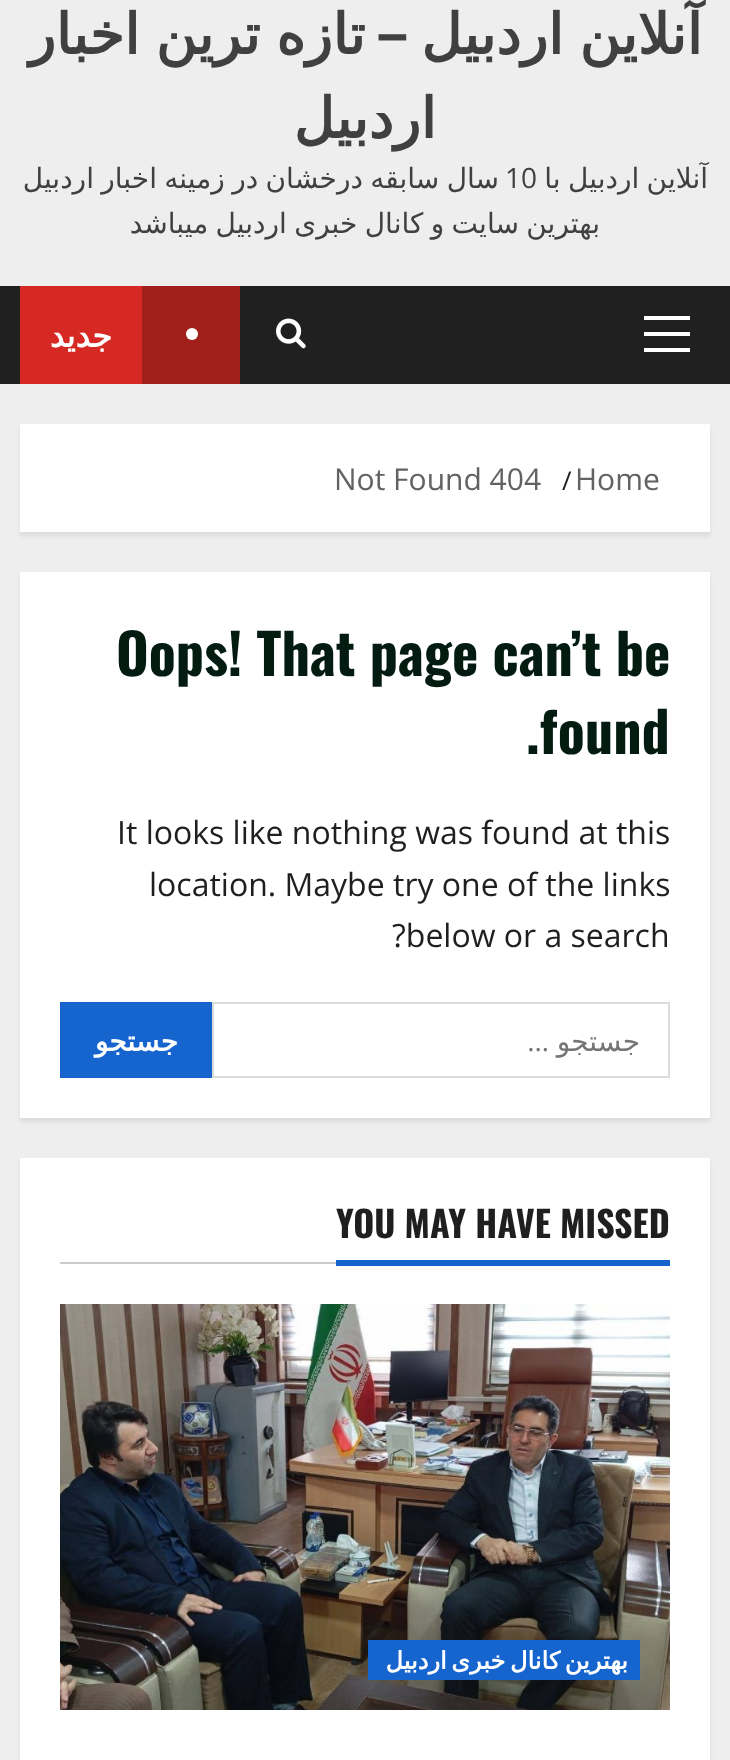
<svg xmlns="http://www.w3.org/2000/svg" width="730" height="1760">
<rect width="100%" height="100%" fill="#eee"/>
<text x="702" y="54" word-spacing="-2" style="font-family:DejaVu Sans;font-size:56px;font-weight:bold;direction:rtl;fill:#404040">آنلاین اردبیل</text>
<text x="408" y="54" style="font-family:Oswald;font-size:56px;font-weight:bold;direction:rtl;fill:#404040">–</text>
<text x="365" y="54" word-spacing="-2" style="font-family:DejaVu Sans;font-size:56px;font-weight:bold;direction:rtl;fill:#404040">تازه ترین اخبار</text>
<text x="436" y="138" style="font-family:DejaVu Sans;font-size:56px;font-weight:bold;direction:rtl;fill:#404040">اردبیل</text>
<text x="708" y="188" word-spacing="-1.5" style="font-family:DejaVu Sans;font-size:28px;direction:rtl;fill:#404040">آنلاین اردبیل با</text>
<text x="505" y="188" style="font-family:Open Sans;font-size:28px;fill:#404040">10</text>
<text x="499" y="188" word-spacing="-1.5" style="font-family:DejaVu Sans;font-size:28px;direction:rtl;fill:#404040">سال سابقه درخشان در زمینه اخبار اردبیل</text>
<text x="600" y="233" word-spacing="-1.5" style="font-family:DejaVu Sans;font-size:28px;direction:rtl;fill:#404040">بهترین سایت و کانال خبری اردبیل میباشد</text>
<rect y="286" width="730" height="98" fill="#202020"/>
<rect x="644" y="332" width="46" height="4" fill="#fff"/>
<rect x="644" y="316" width="46" height="4" fill="#fff"/>
<rect x="644" y="348" width="46" height="4" fill="#fff"/>
<image x="276" y="318" width="30" height="31" href="media/1.png"/>
<rect x="20" y="286" width="122" height="98" fill="#d72924"/>
<rect x="142" y="286" width="98" height="98" fill="#a11f1b"/>
<circle cx="192" cy="334" r="6" fill="#fff"/>
<text x="112" y="347" style="font-family:DejaVu Sans;font-size:32px;font-weight:bold;direction:rtl;fill:#fff">جدید</text>
<rect x="20" y="428" width="690" height="108" fill="#00000014" filter="blur(2px)"/>
<rect x="20" y="424" width="690" height="108" fill="#fff"/>
<text x="575" y="490" style="font-family:Open Sans;font-size:30px;fill:#626262">Home</text>
<text x="562" y="490" style="font-family:Open Sans;font-size:26px;fill:#1f1f1f">/</text>
<text x="334" y="490" style="font-family:Open Sans;font-size:30px;fill:#626262">Not Found 404</text>
<rect x="20" y="576" width="690" height="546" fill="#00000014" filter="blur(2px)"/>
<rect x="20" y="572" width="690" height="546" fill="#fff"/>
<text x="116" y="676" style="font-family:Oswald;font-size:56px;font-weight:bold;fill:#031b11">Oops! That page can’t be</text>
<text x="526" y="754" style="font-family:Oswald;font-size:56px;font-weight:bold;fill:#031b11">.found</text>
<text x="117" y="844" style="font-family:Open Sans;font-size:32px;fill:#1f1f1f">It looks like nothing was found at this</text>
<text x="149" y="896" style="font-family:Open Sans;font-size:32px;fill:#1f1f1f">location. Maybe try one of the links</text>
<text x="392" y="947" style="font-family:Open Sans;font-size:32px;fill:#1f1f1f">?below or a search</text>
<rect x="213" y="1003" width="456" height="74" fill="none" stroke="#dcdcdc" stroke-width="2"/>
<text x="640" y="1051" style="font-family:DejaVu Sans;font-size:28px;direction:rtl;fill:#757575">جستجو</text>
<text x="549" y="1051" style="font-family:Open Sans;font-size:28px;direction:rtl;fill:#757575">…</text>
<rect x="60" y="1002" width="152" height="76" fill="#1665cf"/>
<text x="178" y="1051" style="font-family:DejaVu Sans;font-size:28px;font-weight:bold;direction:rtl;fill:#fff">جستجو</text>
<rect x="20" y="1162" width="690" height="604" fill="#00000014" filter="blur(2px)"/>
<rect x="20" y="1158" width="690" height="602" fill="#fff"/>
<rect x="60" y="1262" width="276" height="2" fill="#ccc"/>
<text x="336" y="1238" style="font-family:Oswald;font-size:36px;font-weight:bold;fill:#1f1f1f">YOU MAY HAVE MISSED</text>
<rect x="336" y="1260" width="334" height="6" fill="#1665cf"/>
<image x="60" y="1304" width="610" height="406" href="media/2.png"/>
<rect x="368" y="1640" width="272" height="40" fill="#1665cf"/>
<text x="628" y="1669" word-spacing="-3" style="font-family:DejaVu Sans;font-size:24px;font-weight:bold;letter-spacing:0.2px;direction:rtl;fill:#fff">بهترین کانال خبری اردبیل</text>
</svg>
